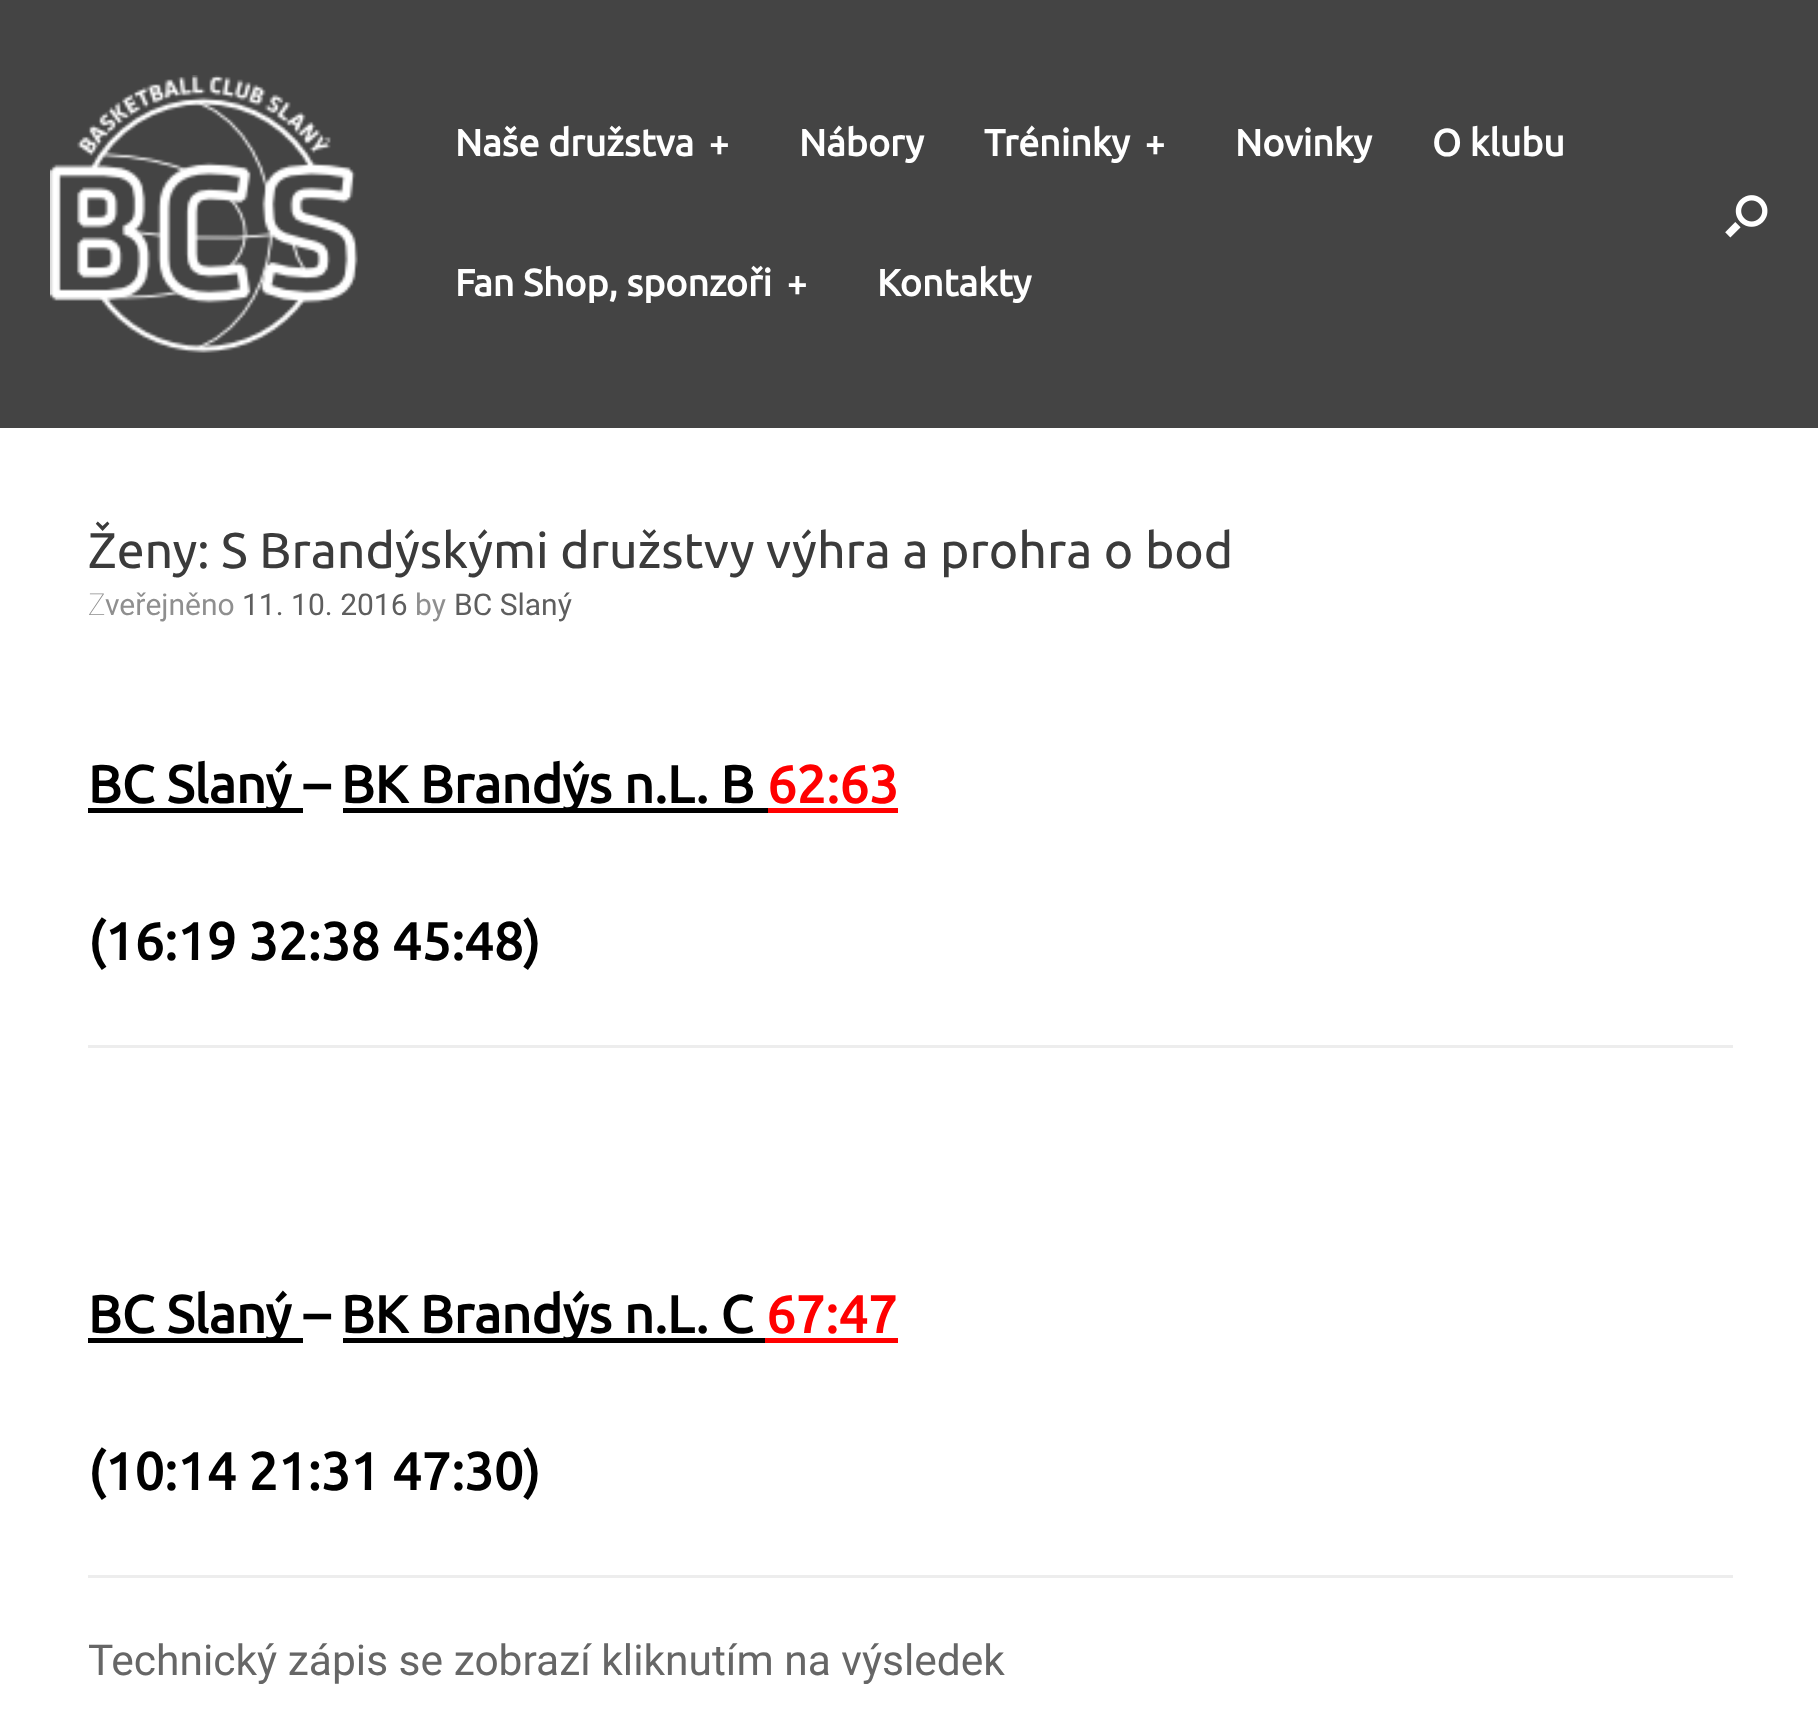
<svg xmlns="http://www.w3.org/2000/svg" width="1818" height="1736">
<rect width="100%" height="100%" fill="#fff"/>
<rect width="1818" height="428" fill="#444"/>
<image x="50" y="75" width="308" height="278" href="media/1.png"/>
<text x="455" y="156" style="font-family:Ubuntu;font-size:37.5px;font-weight:bold;fill:#fff">Naše družstva</text>
<text x="709" y="156" style="font-family:Ubuntu;font-size:35px;font-weight:bold;fill:#fff">+</text>
<text x="799" y="156" style="font-family:Ubuntu;font-size:37.5px;font-weight:bold;fill:#fff">Nábory</text>
<text x="984" y="156" style="font-family:Ubuntu;font-size:37.5px;font-weight:bold;fill:#fff">Tréninky</text>
<text x="1145" y="156" style="font-family:Ubuntu;font-size:35px;font-weight:bold;fill:#fff">+</text>
<text x="1235" y="156" style="font-family:Ubuntu;font-size:37.5px;font-weight:bold;fill:#fff">Novinky</text>
<text x="1432" y="156" style="font-family:Ubuntu;font-size:37.5px;font-weight:bold;fill:#fff">O klubu</text>
<text x="455" y="296" style="font-family:Ubuntu;font-size:37.5px;font-weight:bold;fill:#fff">Fan Shop, sponzoři</text>
<text x="787" y="296" style="font-family:Ubuntu;font-size:35px;font-weight:bold;fill:#fff">+</text>
<text x="877" y="296" style="font-family:Ubuntu;font-size:37.5px;font-weight:bold;fill:#fff">Kontakty</text>
<image x="1725" y="195" width="43" height="43" href="media/2.png"/>
<text x="88" y="568" style="font-family:Ubuntu;font-size:50px;fill:#3b3b3b">Ženy: S Brandýskými družstvy výhra a prohra o bod</text>
<text x="88" y="615" style="font-family:Noto Sans;font-size:30px;font-weight:100;fill:#8f8f8f">Z</text>
<text x="105" y="615" style="font-family:Roboto;font-size:30px;fill:#8f8f8f">veřejněno</text>
<text x="242" y="615" style="font-family:Roboto;font-size:30px;fill:#5e5e5e">11. 10. 2016</text>
<text x="415" y="615" style="font-family:Roboto;font-size:30px;fill:#8f8f8f">by</text>
<text x="454" y="615" style="font-family:Roboto;font-size:30px;fill:#5e5e5e">BC Slaný</text>
<rect x="88" y="1045" width="1645" height="3" fill="#ededed"/>
<rect x="88" y="808" width="215" height="5" fill="#000"/>
<text x="88" y="803" style="font-family:Ubuntu;font-size:52.5px;font-weight:bold;fill:#000">BC Slaný –</text>
<rect x="343" y="808" width="425" height="5" fill="#000"/>
<text x="341" y="803" style="font-family:Ubuntu;font-size:52.5px;font-weight:bold;fill:#000">BK Brandýs n.L. B</text>
<text x="767" y="803" style="font-family:Ubuntu;font-size:52.5px;font-weight:bold;fill:#f00">62:63</text>
<rect x="768" y="808" width="130" height="5" fill="#f00"/>
<text x="88" y="960" style="font-family:Ubuntu;font-size:52.5px;font-weight:bold;fill:#000">(16:19 32:38 45:48)</text>
<rect x="88" y="1575" width="1645" height="3" fill="#ededed"/>
<rect x="88" y="1338" width="215" height="5" fill="#000"/>
<text x="88" y="1333" style="font-family:Ubuntu;font-size:52.5px;font-weight:bold;fill:#000">BC Slaný –</text>
<rect x="343" y="1338" width="422" height="5" fill="#000"/>
<text x="341" y="1333" style="font-family:Ubuntu;font-size:52.5px;font-weight:bold;fill:#000">BK Brandýs n.L. C</text>
<text x="766" y="1333" style="font-family:Ubuntu;font-size:52.5px;font-weight:bold;fill:#f00">67:47</text>
<rect x="765" y="1338" width="133" height="5" fill="#f00"/>
<text x="88" y="1490" style="font-family:Ubuntu;font-size:52.5px;font-weight:bold;fill:#000">(10:14 21:31 47:30)</text>
<text x="88" y="1675" style="font-family:Roboto;font-size:42.5px;fill:#666">Technický zápis se zobrazí kliknutím na výsledek</text>
</svg>
